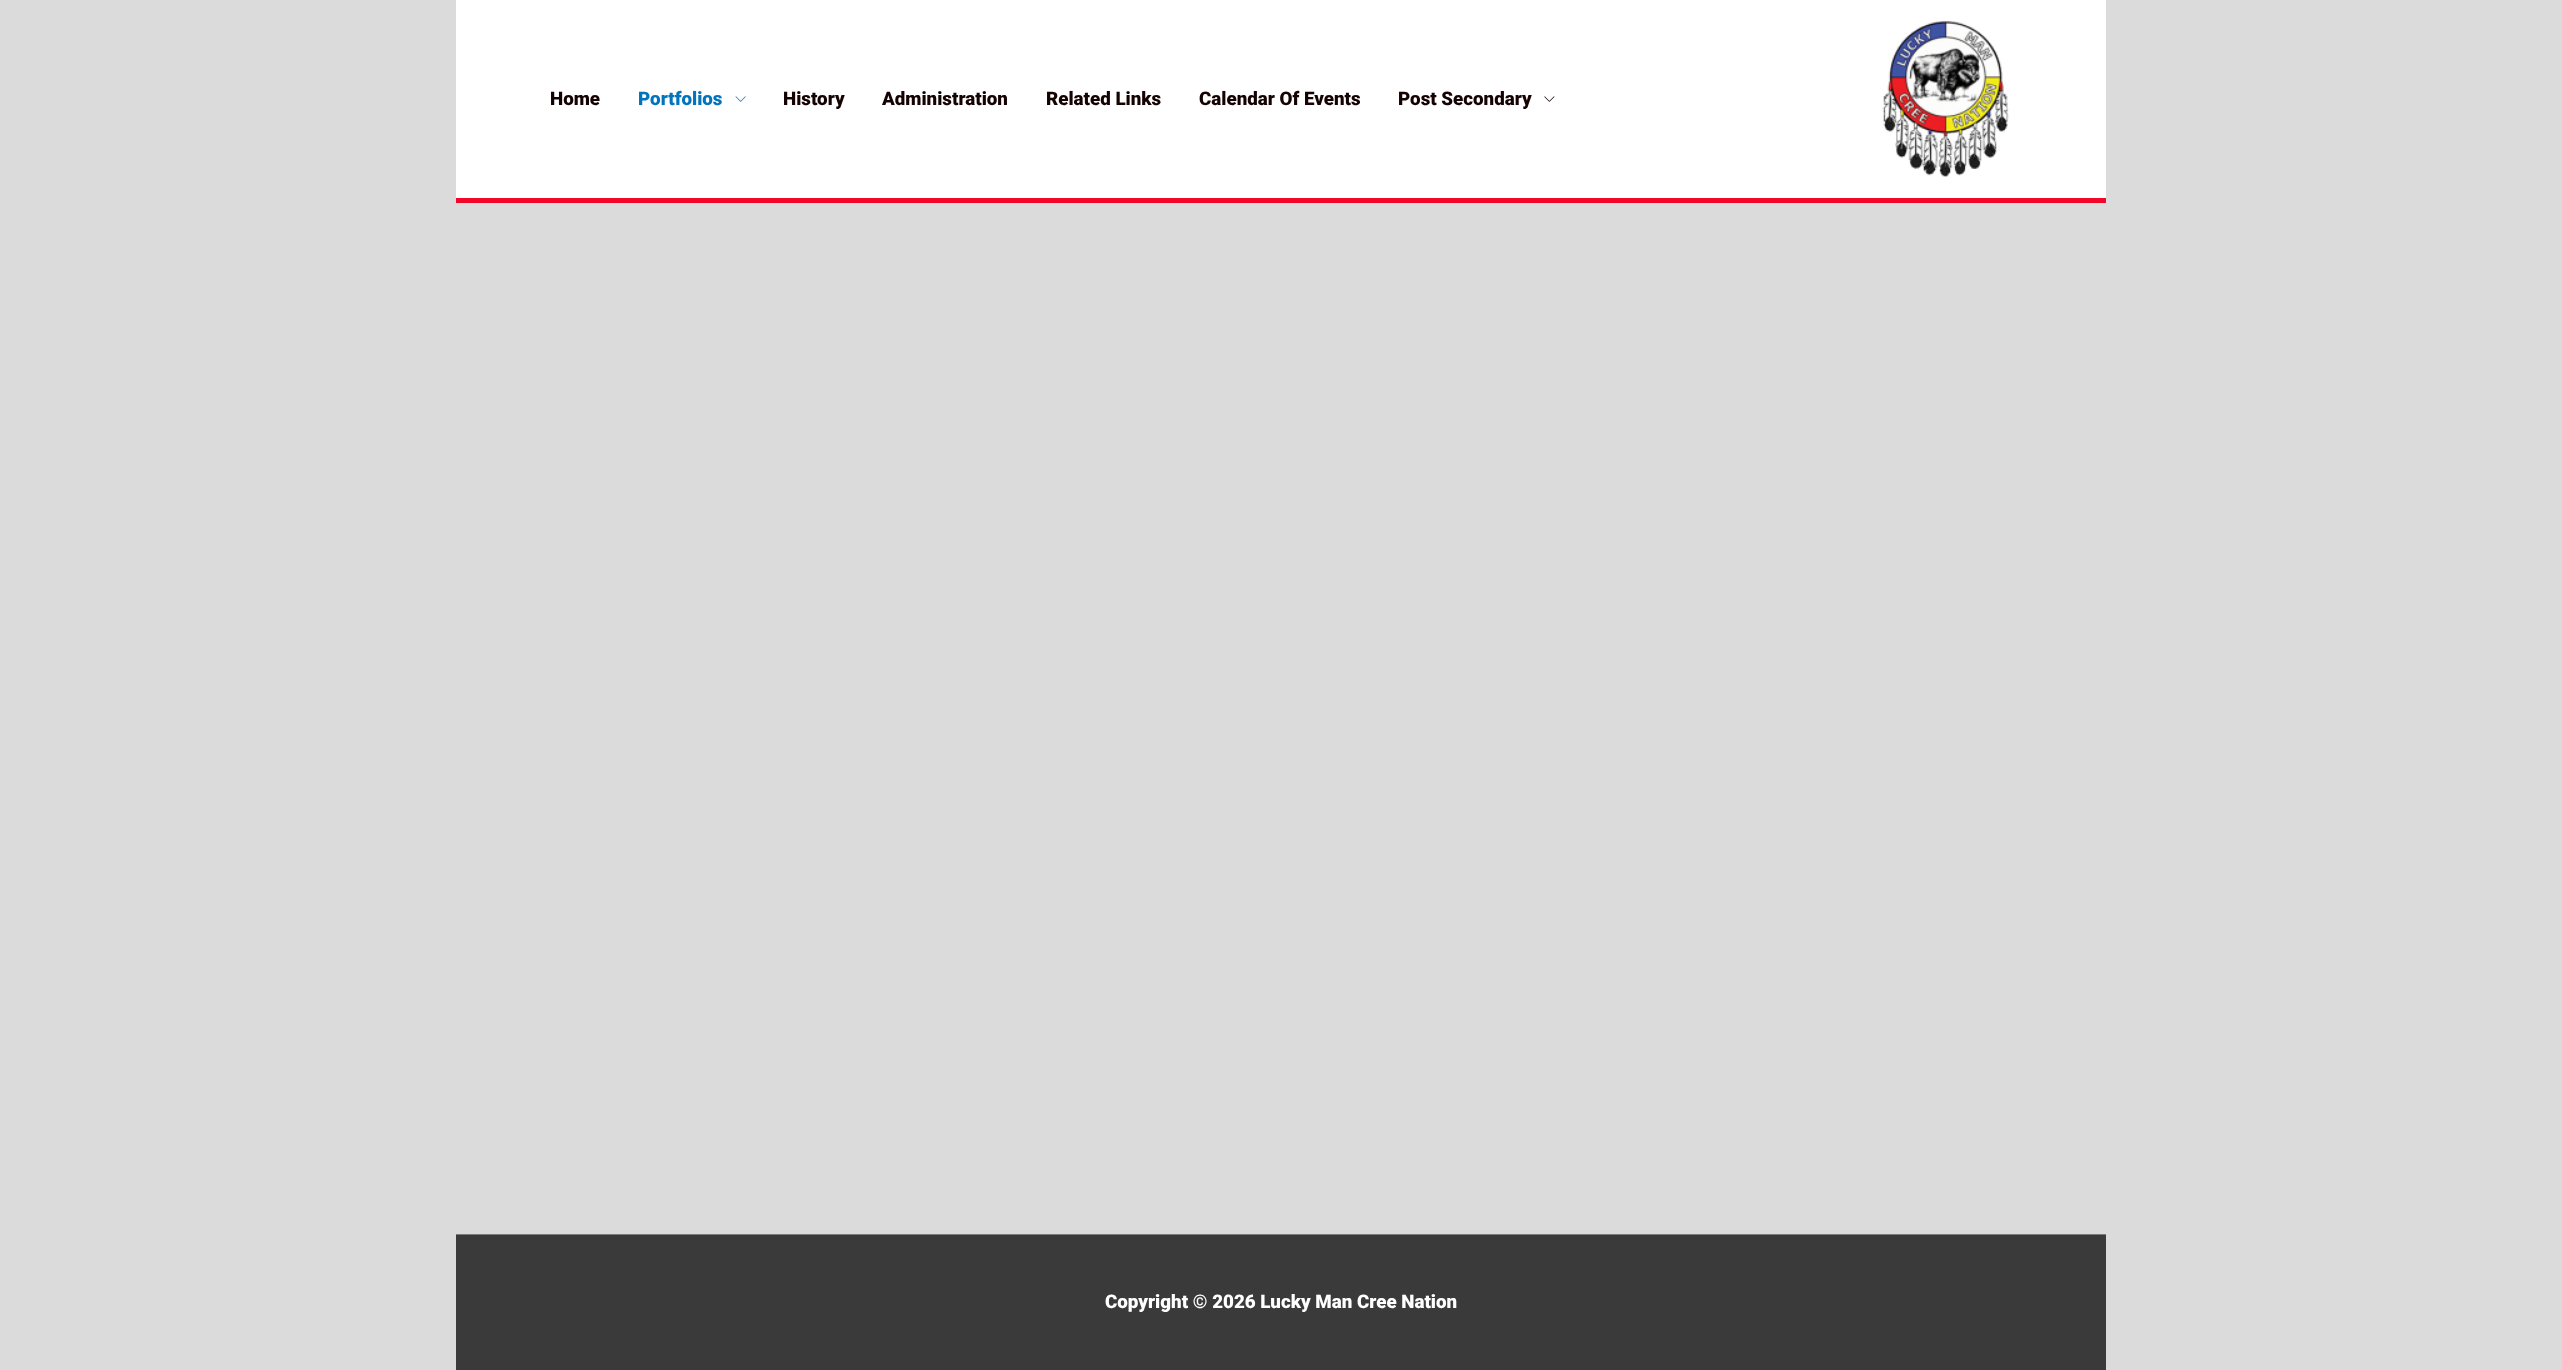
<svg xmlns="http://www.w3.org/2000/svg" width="2562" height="1370">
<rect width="100%" height="100%" fill="#dbdbdb"/>
<rect x="456" width="1650" height="198" fill="#fff"/>
<rect x="456" y="198" width="1650" height="5" fill="#f2072a"/>
<text x="550" y="105" style="font-family:Roboto;font-size:18.75px;font-weight:900;fill:#150202">Home</text>
<text x="638" y="105" style="font-family:Roboto;font-size:18.75px;font-weight:900;fill:#0274be">Portfolios</text>
<image x="735" y="96" width="11" height="6" href="media/1.png"/>
<text x="783" y="105" style="font-family:Roboto;font-size:18.75px;font-weight:900;fill:#150202">History</text>
<text x="882" y="105" style="font-family:Roboto;font-size:18.75px;font-weight:900;fill:#150202">Administration</text>
<text x="1046" y="105" style="font-family:Roboto;font-size:18.75px;font-weight:900;fill:#150202">Related Links</text>
<text x="1199" y="105" style="font-family:Roboto;font-size:18.75px;font-weight:900;fill:#150202">Calendar Of Events</text>
<text x="1398" y="105" style="font-family:Roboto;font-size:18.75px;font-weight:900;fill:#150202">Post Secondary</text>
<image x="1544" y="96" width="11" height="6" href="media/2.png"/>
<image x="1882" y="21" width="127" height="157" href="media/3.png"/>
<rect x="456" y="1234" width="1650" height="1" fill="#7a7a7a"/>
<rect x="456" y="1235" width="1650" height="135" fill="#3a3a3a"/>
<text x="1105" y="1308" style="font-family:Roboto;font-size:18.75px;font-weight:900;fill:#fff">Copyright © 2026 Lucky Man Cree Nation</text>
</svg>
